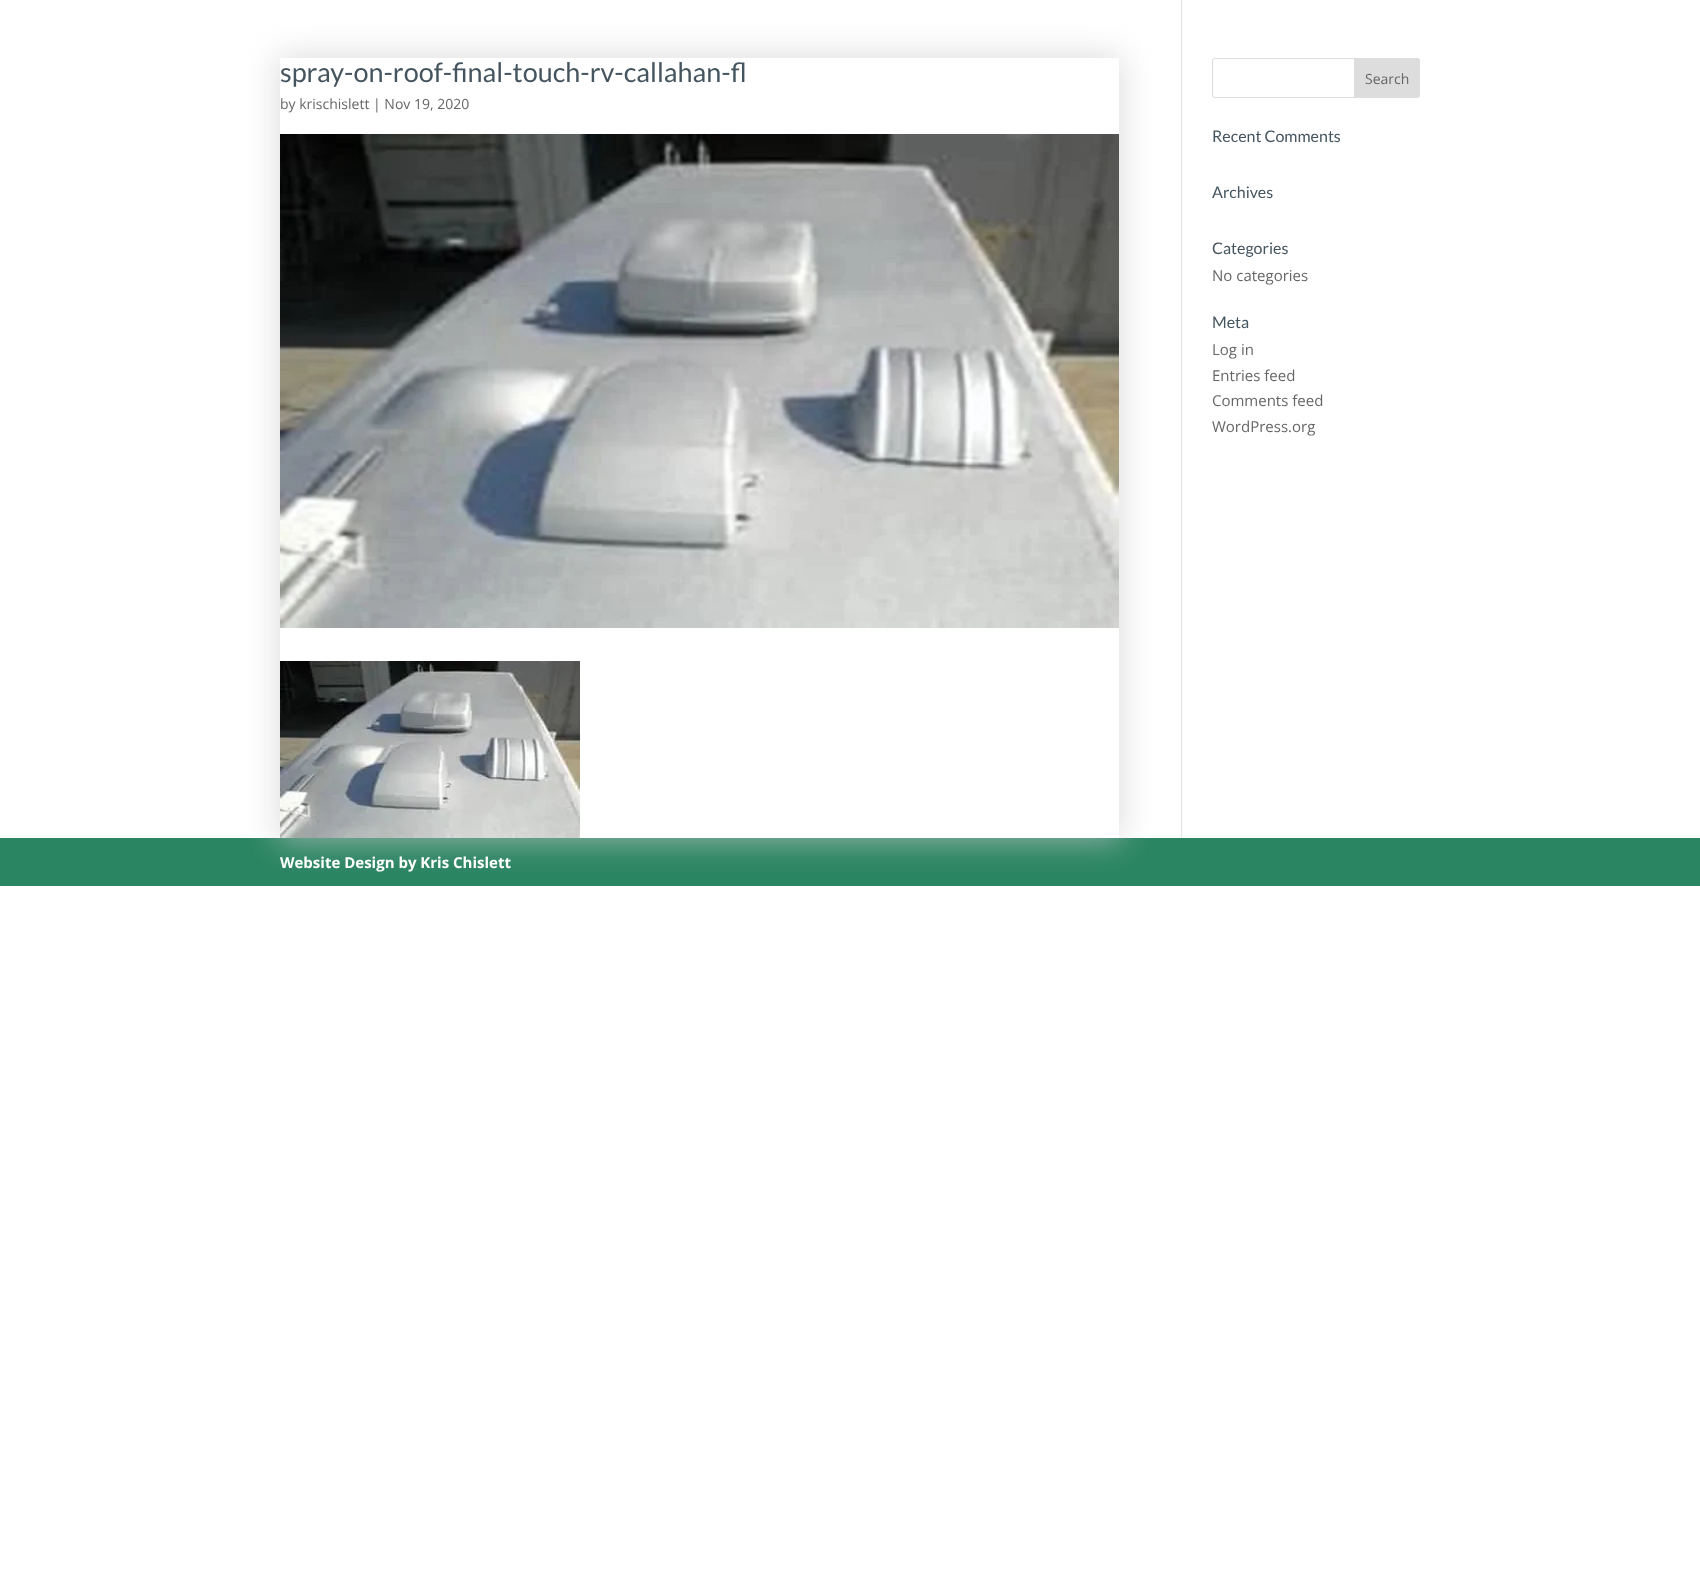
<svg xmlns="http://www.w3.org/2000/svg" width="1700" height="1577">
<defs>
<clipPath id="clip1"><path d="M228 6h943v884h-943zm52 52h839v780h-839z" clip-rule="evenodd"/></clipPath>
</defs>
<rect width="100%" height="100%" fill="#fff"/>
<rect x="1181" width="1" height="838" fill="#e2e2e2"/>
<rect y="838" width="1700" height="48" fill="#2a8563"/>
<g clip-path="url(#clip1)">
<rect x="277" y="55" width="845" height="786" fill="#cccccca6" filter="blur(16px)"/>
</g>
<text x="280" y="82" style="font-family:Lato;font-size:27px;fill:#45555f">spray-on-roof-final-touch-rv-callahan-fl</text>
<text x="280" y="109" style="font-family:Open Sans;font-size:14px;fill:#666">by krischislett | Nov 19, 2020</text>
<image x="280" y="134" width="839" height="494" href="media/1.png"/>
<image x="280" y="661" width="300" height="177" href="media/2.png"/>
<rect x="1212.5" y="58.5" width="207" height="39" rx="2.5" fill="none" stroke="#ddd"/>
<path d="M1354.5 58.5h62.5c1.5 0 2.5 1 2.5 2.5v34c0 1.5-1 2.5-2.5 2.5h-62.5z" fill="#ddd" stroke="#ddd"/>
<text x="1365" y="84" style="font-family:Open Sans;font-size:14px;fill:#666">Search</text>
<text x="1212" y="142" style="font-family:Lato;font-size:16px;fill:#45555f">Recent Comments</text>
<text x="1212" y="198" style="font-family:Lato;font-size:16px;fill:#45555f">Archives</text>
<text x="1212" y="254" style="font-family:Lato;font-size:16px;fill:#45555f">Categories</text>
<text x="1212" y="281" style="font-family:Open Sans;font-size:15px;fill:#666">No categories</text>
<text x="1212" y="328" style="font-family:Lato;font-size:16px;fill:#45555f">Meta</text>
<text x="1212" y="355" style="font-family:Open Sans;font-size:15px;fill:#666">Log in</text>
<text x="1212" y="381" style="font-family:Open Sans;font-size:15px;fill:#666">Entries feed</text>
<text x="1212" y="406" style="font-family:Open Sans;font-size:15px;fill:#666">Comments feed</text>
<text x="1212" y="432" style="font-family:Open Sans;font-size:15px;fill:#666">WordPress.org</text>
<text x="280" y="868" style="font-family:Open Sans;font-size:15px;font-weight:bold;fill:#fff">Website Design by Kris Chislett</text>
</svg>
